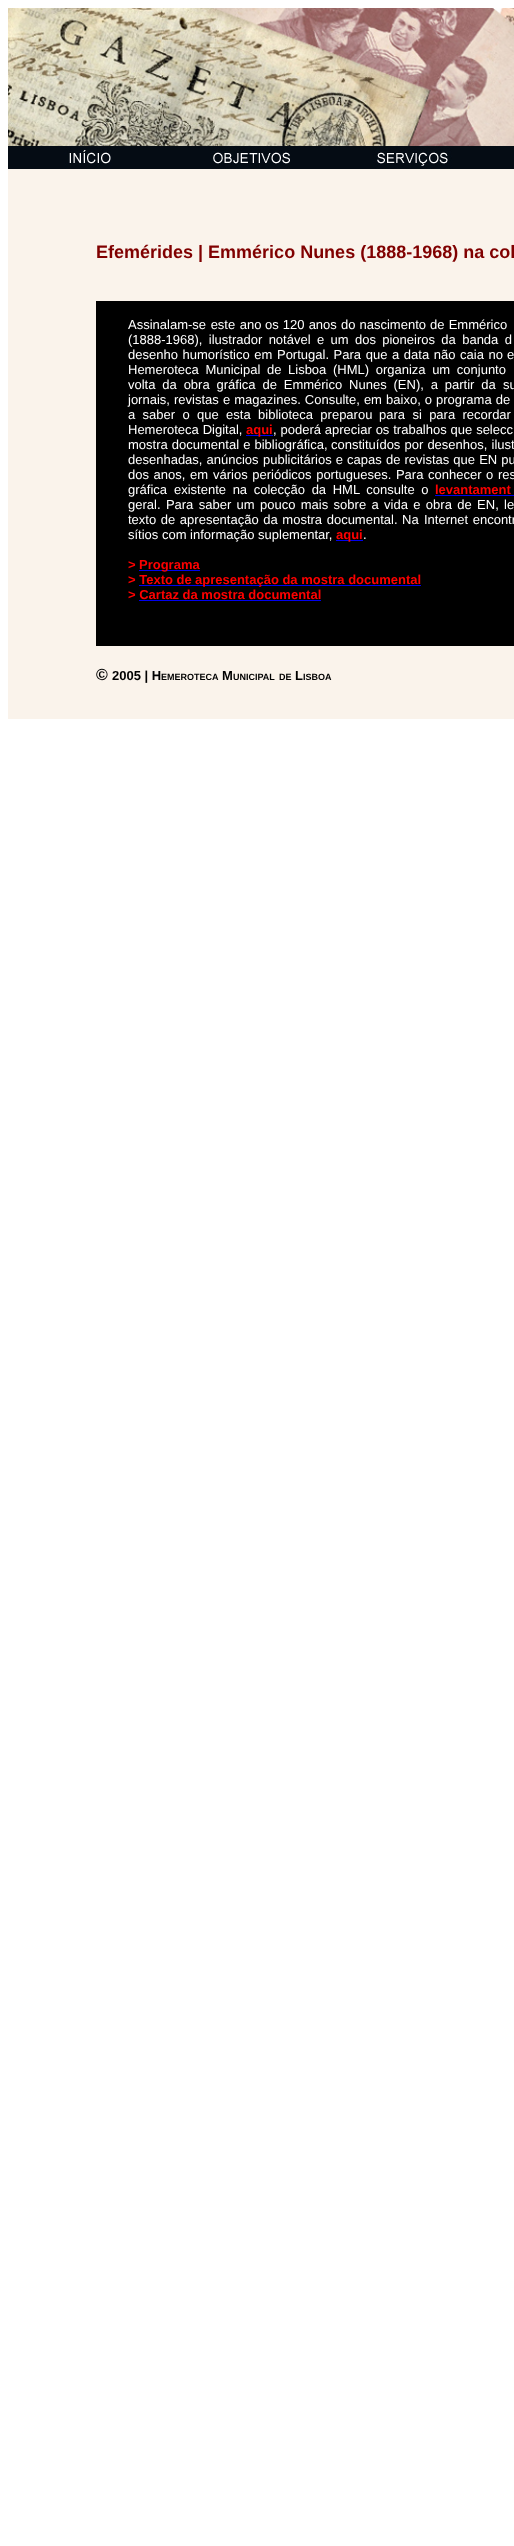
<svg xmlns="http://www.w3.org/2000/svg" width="514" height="2546">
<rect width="100%" height="100%" fill="#fff"/>
<image x="8" y="8" width="506" height="138" href="media/1.png"/>
<image x="8" y="146" width="162" height="23" href="media/2.png"/>
<image x="170" y="146" width="162" height="23" href="media/3.png"/>
<image x="332" y="146" width="162" height="23" href="media/4.png"/>
<rect x="494" y="146" width="20" height="23" fill="#050c14"/>
<rect x="8" y="169" width="506" height="550" fill="#faf3eb"/>
<text x="96" y="258" style="font-family:Liberation Sans;font-size:18px;font-weight:bold;fill:#800000">Efemérides | Emmérico Nunes (1888-1968) na col</text>
<rect x="96" y="301" width="418" height="345" fill="#000"/>
<text x="128" y="329" word-spacing="1" style="font-family:Liberation Sans;font-size:13px;fill:#fff">Assinalam-se este ano</text>
<text x="265" y="329" word-spacing="0.5" style="font-family:Liberation Sans;font-size:13px;fill:#fff">os 120 anos do nascimento de Emmérico</text>
<text x="128" y="344" word-spacing="2.75" style="font-family:Liberation Sans;font-size:13px;fill:#fff">(1888-1968), ilustrador notável e um dos pioneiros da banda d</text>
<text x="128" y="359" word-spacing="1" style="font-family:Liberation Sans;font-size:13px;fill:#fff">desenho humorístico em Portugal. Para que a data não caia no</text>
<text x="507" y="359" word-spacing="1" style="font-family:Liberation Sans;font-size:13px;fill:#fff">e</text>
<text x="128" y="374" word-spacing="3" style="font-family:Liberation Sans;font-size:13px;fill:#fff">Hemeroteca Municipal de Lisboa (HML) organiza um conjunto</text>
<text x="128" y="389" word-spacing="3.25" style="font-family:Liberation Sans;font-size:13px;fill:#fff">volta da obra gráfica de Emmérico Nunes (EN), a partir da</text>
<text x="503" y="389" word-spacing="3.25" style="font-family:Liberation Sans;font-size:13px;fill:#fff">su</text>
<text x="128" y="404" word-spacing="0.5" style="font-family:Liberation Sans;font-size:13px;fill:#fff">jornais, revistas e magazines. Consulte, em baixo, o</text>
<text x="436" y="404" word-spacing="0.5" style="font-family:Liberation Sans;font-size:13px;fill:#fff">programa de</text>
<text x="128" y="419" word-spacing="3.75" style="font-family:Liberation Sans;font-size:13px;fill:#fff">a saber o que esta biblioteca preparou</text>
<text x="379" y="419" word-spacing="3.75" style="font-family:Liberation Sans;font-size:13px;fill:#fff">para si para recordar</text>
<text x="128" y="434" word-spacing="0.25" style="font-family:Liberation Sans;font-size:13px;fill:#fff">Hemeroteca Digital,</text>
<rect x="246" y="435" width="27" height="1" fill="#00e"/>
<text x="246" y="434" style="font-family:Liberation Sans;font-size:13px;font-weight:bold;fill:#f00">aqui</text>
<text x="273" y="434" word-spacing="0.25" style="font-family:Liberation Sans;font-size:13px;fill:#fff">, poderá apreciar os trabalhos que selecc</text>
<text x="128" y="449" word-spacing="0.5" style="font-family:Liberation Sans;font-size:13px;fill:#fff">mostra documental e bibliográfica,</text>
<text x="331" y="449" word-spacing="0.5" style="font-family:Liberation Sans;font-size:13px;fill:#fff">constituídos por desenhos, ilust</text>
<text x="128" y="464" word-spacing="0.5" style="font-family:Liberation Sans;font-size:13px;fill:#fff">desenhadas, anúncios</text>
<text x="263" y="464" word-spacing="0.5" style="font-family:Liberation Sans;font-size:13px;fill:#fff">publicitários e capas de revistas que EN pu</text>
<text x="128" y="479" word-spacing="1" style="font-family:Liberation Sans;font-size:13px;fill:#fff">dos anos, em</text>
<text x="213" y="479" word-spacing="1" style="font-family:Liberation Sans;font-size:13px;fill:#fff">vários periódicos portugueses. Para conhecer o res</text>
<text x="128" y="494" style="font-family:Liberation Sans;font-size:13px;fill:#fff">gráfica</text>
<text x="174" y="494" word-spacing="3" style="font-family:Liberation Sans;font-size:13px;fill:#fff">existente na colecção da HML consulte o</text>
<text x="435" y="494" word-spacing="3" style="font-family:Liberation Sans;font-size:13px;font-weight:bold;fill:#f00">levantament</text>
<rect x="435" y="495" width="79" height="1" fill="#00e"/>
<text x="128" y="509" word-spacing="1.75" style="font-family:Liberation Sans;font-size:13px;fill:#fff">geral. Para saber um pouco mais sobre a vida e obra de EN, le</text>
<text x="128" y="524" word-spacing="1" style="font-family:Liberation Sans;font-size:13px;fill:#fff">texto de apresentação da mostra documental. Na</text>
<text x="424" y="524" word-spacing="1" style="font-family:Liberation Sans;font-size:13px;fill:#fff">Internet encontr</text>
<text x="128" y="539" style="font-family:Liberation Sans;font-size:13px;fill:#fff">sítios com informação suplementar,</text>
<rect x="336" y="540" width="27" height="1" fill="#00e"/>
<text x="336" y="539" style="font-family:Liberation Sans;font-size:13px;font-weight:bold;fill:#f00">aqui</text>
<text x="363" y="539" style="font-family:Liberation Sans;font-size:13px;fill:#fff">.</text>
<text x="128" y="569" style="font-family:Liberation Sans;font-size:13px;font-weight:bold;fill:#f00">&gt;</text>
<rect x="139" y="570" width="61" height="1" fill="#00e"/>
<text x="139" y="569" style="font-family:Liberation Sans;font-size:13px;font-weight:bold;fill:#f00">Programa</text>
<text x="128" y="584" style="font-family:Liberation Sans;font-size:13px;font-weight:bold;fill:#f00">&gt; Texto de</text>
<rect x="139" y="585" width="282" height="1" fill="#00e"/>
<text x="195" y="584" style="font-family:Liberation Sans;font-size:13px;font-weight:bold;fill:#f00">apresentação da mostra documental</text>
<text x="128" y="599" style="font-family:Liberation Sans;font-size:13px;font-weight:bold;fill:#f00">&gt; Cartaz da mostra documental</text>
<rect x="139" y="600" width="182" height="1" fill="#00e"/>
<text x="96" y="680" style="font-family:Liberation Sans;font-size:16px;font-weight:bold;fill:#000">©</text>
<text x="112" y="680" style="font-family:Liberation Sans;font-size:13px;font-weight:bold;fill:#000">2005 | H</text>
<text x="161" y="680" style="font-family:Liberation Sans;font-size:9px;font-weight:bold;fill:#000">EMEROTECA</text>
<text x="222" y="680" style="font-family:Liberation Sans;font-size:13px;font-weight:bold;fill:#000">M</text>
<text x="233" y="680" style="font-family:Liberation Sans;font-size:9px;font-weight:bold;fill:#000">UNICIPAL</text>
<text x="279" y="680" style="font-family:Liberation Sans;font-size:9px;font-weight:bold;fill:#000">DE</text>
<text x="295" y="680" style="font-family:Liberation Sans;font-size:13px;font-weight:bold;fill:#000">L</text>
<text x="303" y="680" style="font-family:Liberation Sans;font-size:9px;font-weight:bold;fill:#000">ISBOA</text>
</svg>
